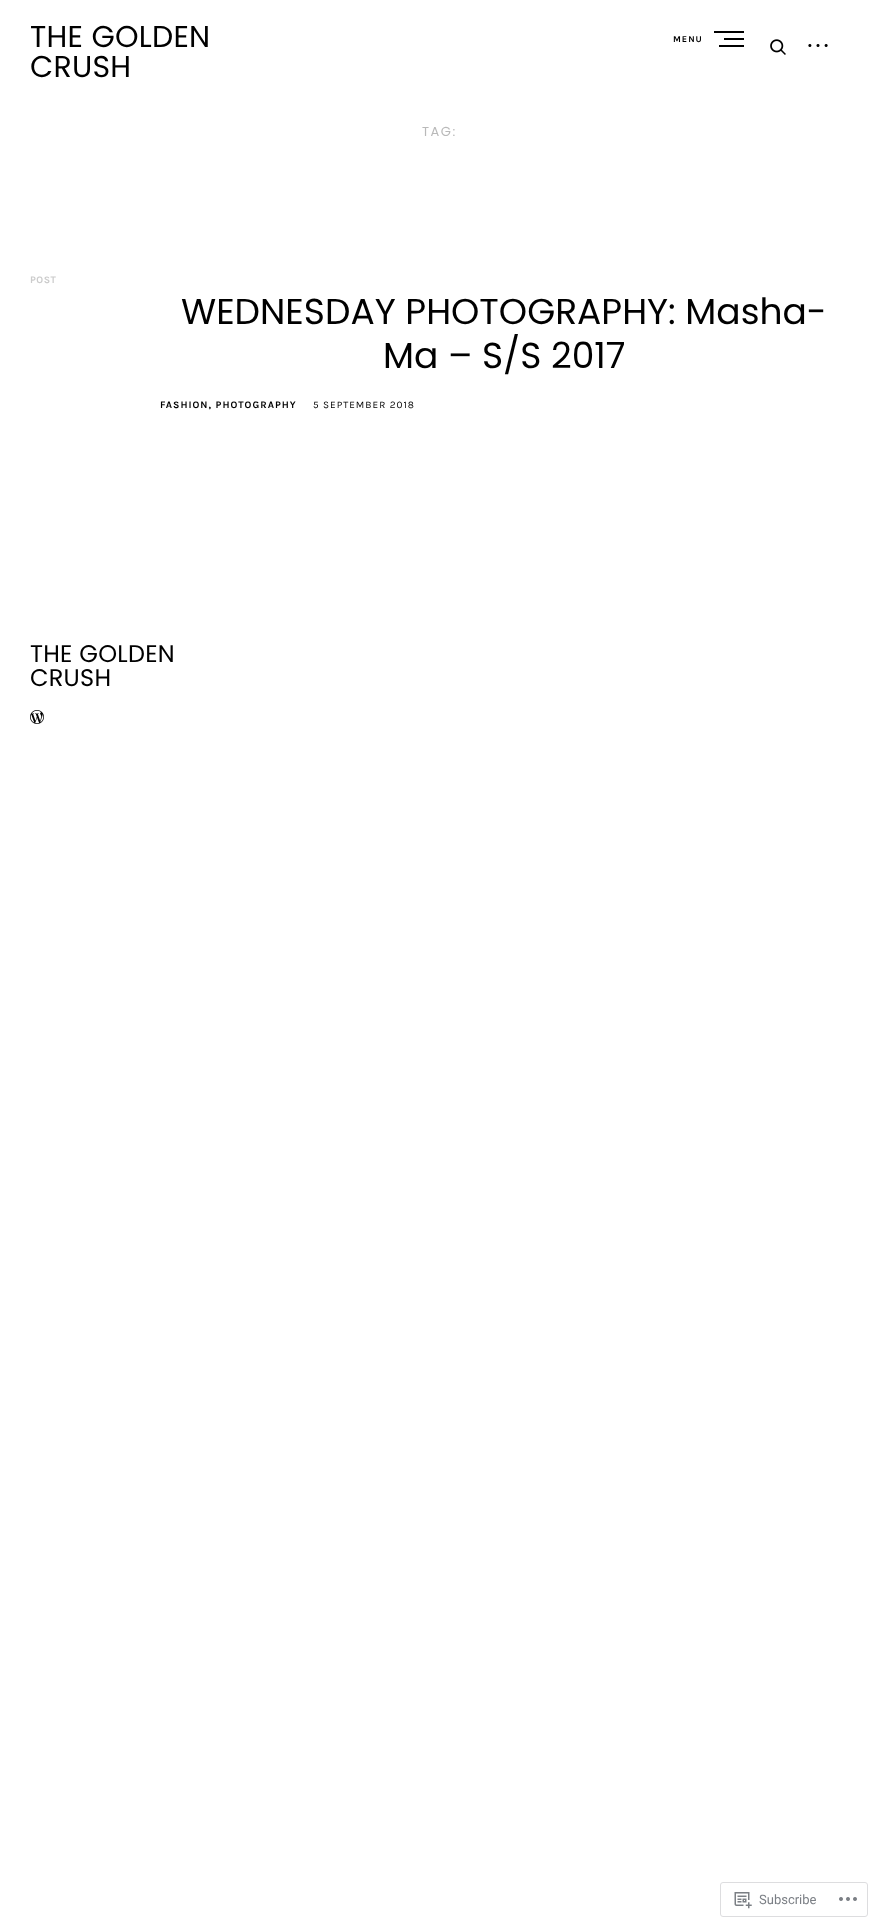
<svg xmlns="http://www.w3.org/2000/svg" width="878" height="1927">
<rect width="100%" height="100%" fill="#fff"/>
<text x="30" y="47" style="font-family:Poppins;font-size:30px;letter-spacing:0.25px;fill:#000">THE GOLDEN</text>
<text x="30" y="77" style="font-family:Poppins;font-size:30px;letter-spacing:0.25px;fill:#000">CRUSH</text>
<text x="673" y="42" style="font-family:Karla;font-size:9px;font-weight:bold;letter-spacing:1px;fill:#000">MENU</text>
<rect x="724" y="38" width="20" height="2" fill="#000"/>
<rect x="714" y="31" width="30" height="2" fill="#000"/>
<rect x="719" y="45" width="25" height="2" fill="#000"/>
<image x="770" y="39" width="16" height="16" href="media/1.png"/>
<image x="808" y="44" width="20" height="3" href="media/2.png"/>
<text x="422" y="136" style="font-family:Poppins;font-size:13px;letter-spacing:1.5px;fill:#b9b9b9">TAG:</text>
<text x="30" y="283" style="font-family:Karla;font-size:10px;font-weight:bold;letter-spacing:0.5px;fill:#ccc">POST</text>
<text x="181" y="324" style="font-family:Poppins;font-size:36px;fill:#000">WEDNESDAY PHOTOGRAPHY: Masha-</text>
<text x="383" y="368" style="font-family:Poppins;font-size:36px;fill:#000">Ma – S/S 2017</text>
<text x="160" y="408" style="font-family:Karla;font-size:10px;font-weight:bold;letter-spacing:1px;fill:#000">FASHION, PHOTOGRAPHY</text>
<text x="313" y="408" style="font-family:Karla;font-size:10px;letter-spacing:1px;fill:#000">5 SEPTEMBER 2018</text>
<text x="30" y="662" style="font-family:Poppins;font-size:24px;letter-spacing:0.25px;fill:#000">THE GOLDEN</text>
<text x="30" y="686" style="font-family:Poppins;font-size:24px;letter-spacing:0.25px;fill:#000">CRUSH</text>
<image x="30" y="710" width="14" height="14" href="media/3.png"/>
<rect x="720.5" y="1882.5" width="147" height="34" rx="2.5" fill="none" stroke="#dddddf"/>
<image x="734" y="1892" width="18" height="17" href="media/4.png"/>
<text x="759" y="1904" style="font-family:Roboto;font-size:13px;fill:#7b7f85">Subscribe</text>
<image x="839" y="1897" width="18" height="4" href="media/5.png"/>
</svg>
